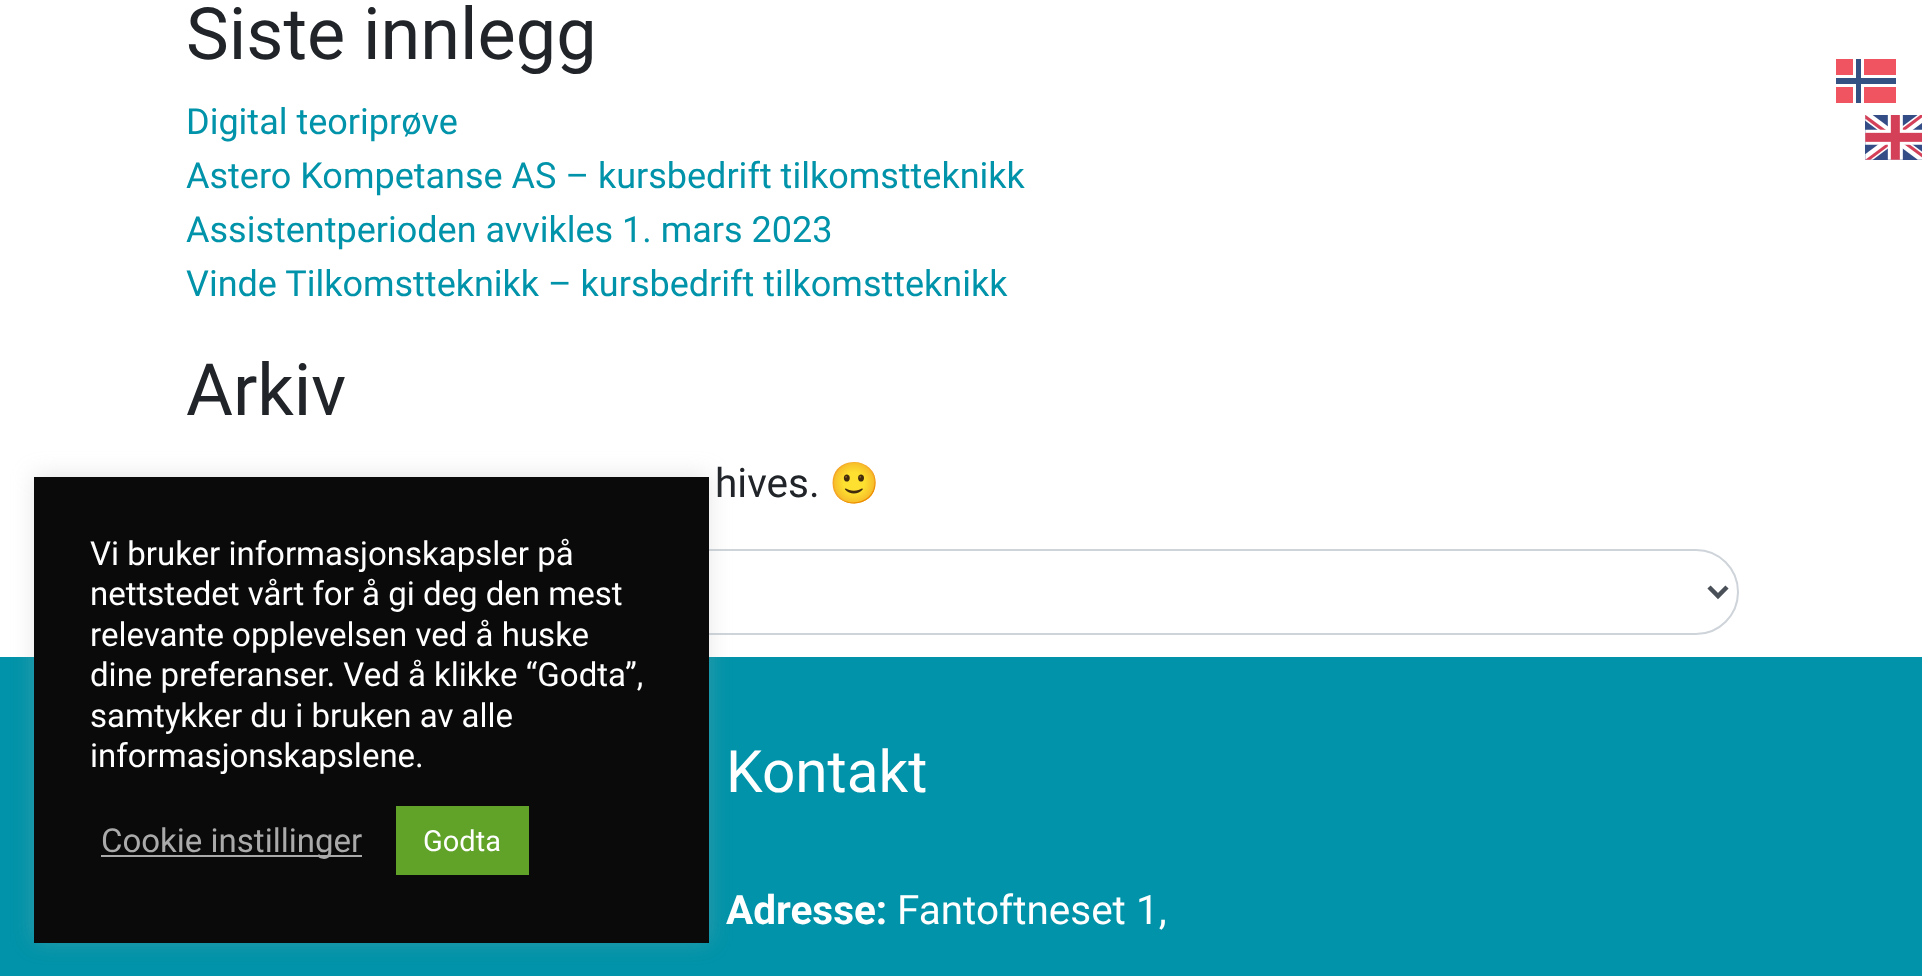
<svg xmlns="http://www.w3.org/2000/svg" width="1922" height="976">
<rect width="100%" height="100%" fill="#fff"/>
<text x="186" y="59" style="font-family:Roboto;font-size:72px;fill:#212529">Siste innlegg</text>
<text x="186" y="134" style="font-family:Roboto;font-size:36px;fill:#0093a9">Digital teoriprøve</text>
<text x="186" y="188" style="font-family:Roboto;font-size:36px;fill:#0093a9">Astero Kompetanse AS – kursbedrift tilkomstteknikk</text>
<text x="186" y="242" style="font-family:Roboto;font-size:36px;fill:#0093a9">Assistentperioden avvikles 1. mars 2023</text>
<text x="186" y="296" style="font-family:Roboto;font-size:36px;fill:#0093a9">Vinde Tilkomstteknikk – kursbedrift tilkomstteknikk</text>
<text x="186" y="415" style="font-family:Roboto;font-size:72px;fill:#212529">Arkiv</text>
<text x="715" y="497" style="font-family:Roboto;font-size:40.5px;fill:#212529">hives.</text>
<text x="829" y="497" style="font-family:Noto Color Emoji;font-size:40.5px;fill:#212529">🙂</text>
<rect x="188" y="550" width="1550" height="84" rx="42" fill="none" stroke="#ced4da" stroke-width="2"/>
<path d="M1709 587l9 9l9-9" fill="none" stroke="#495057" stroke-width="4.5"/>
<rect x="1836" y="59" width="60" height="44" fill="#f15461"/>
<rect x="1853" y="59" width="11" height="44" fill="#fff"/>
<rect x="1836" y="75" width="60" height="12" fill="#fff"/>
<rect x="1856" y="59" width="5" height="44" fill="#335183"/>
<rect x="1836" y="78" width="60" height="6" fill="#335183"/>
<image x="1865" y="115" width="57" height="45" href="media/1.png"/>
<rect y="657" width="1922" height="319" fill="#0093a9"/>
<text x="726" y="792" style="font-family:Roboto;font-size:58.5px;fill:#fff">Kontakt</text>
<text x="726" y="924" style="font-family:Roboto;font-size:40.5px;font-weight:bold;fill:#fff">Adresse:</text>
<text x="897" y="924" style="font-family:Roboto;font-size:40.5px;fill:#fff">Fantoftneset 1,</text>
<rect x="34" y="475" width="675" height="466" fill="#acabab4d" filter="blur(11px)"/>
<rect x="34" y="477" width="675" height="466" fill="#0a0a0a"/>
<text x="90" y="565" style="font-family:Roboto;font-size:33px;fill:#fff">Vi bruker informasjonskapsler på</text>
<text x="90" y="605" style="font-family:Roboto;font-size:33px;fill:#fff">nettstedet vårt for å gi deg den mest</text>
<text x="90" y="646" style="font-family:Roboto;font-size:33px;fill:#fff">relevante opplevelsen ved å huske</text>
<text x="90" y="686" style="font-family:Roboto;font-size:33px;fill:#fff">dine preferanser. Ved å klikke “Godta”,</text>
<text x="90" y="727" style="font-family:Roboto;font-size:33px;fill:#fff">samtykker du i bruken av alle</text>
<text x="90" y="767" style="font-family:Roboto;font-size:33px;fill:#fff">informasjonskapslene.</text>
<rect x="101" y="855" width="261" height="2" fill="#aaa"/>
<text x="101" y="852" style="font-family:Roboto;font-size:33px;fill:#aaa">Cookie instillinger</text>
<rect x="396" y="806" width="133" height="69" fill="#61a229"/>
<text x="423" y="851" style="font-family:Roboto;font-size:29px;fill:#fff">Godta</text>
</svg>
